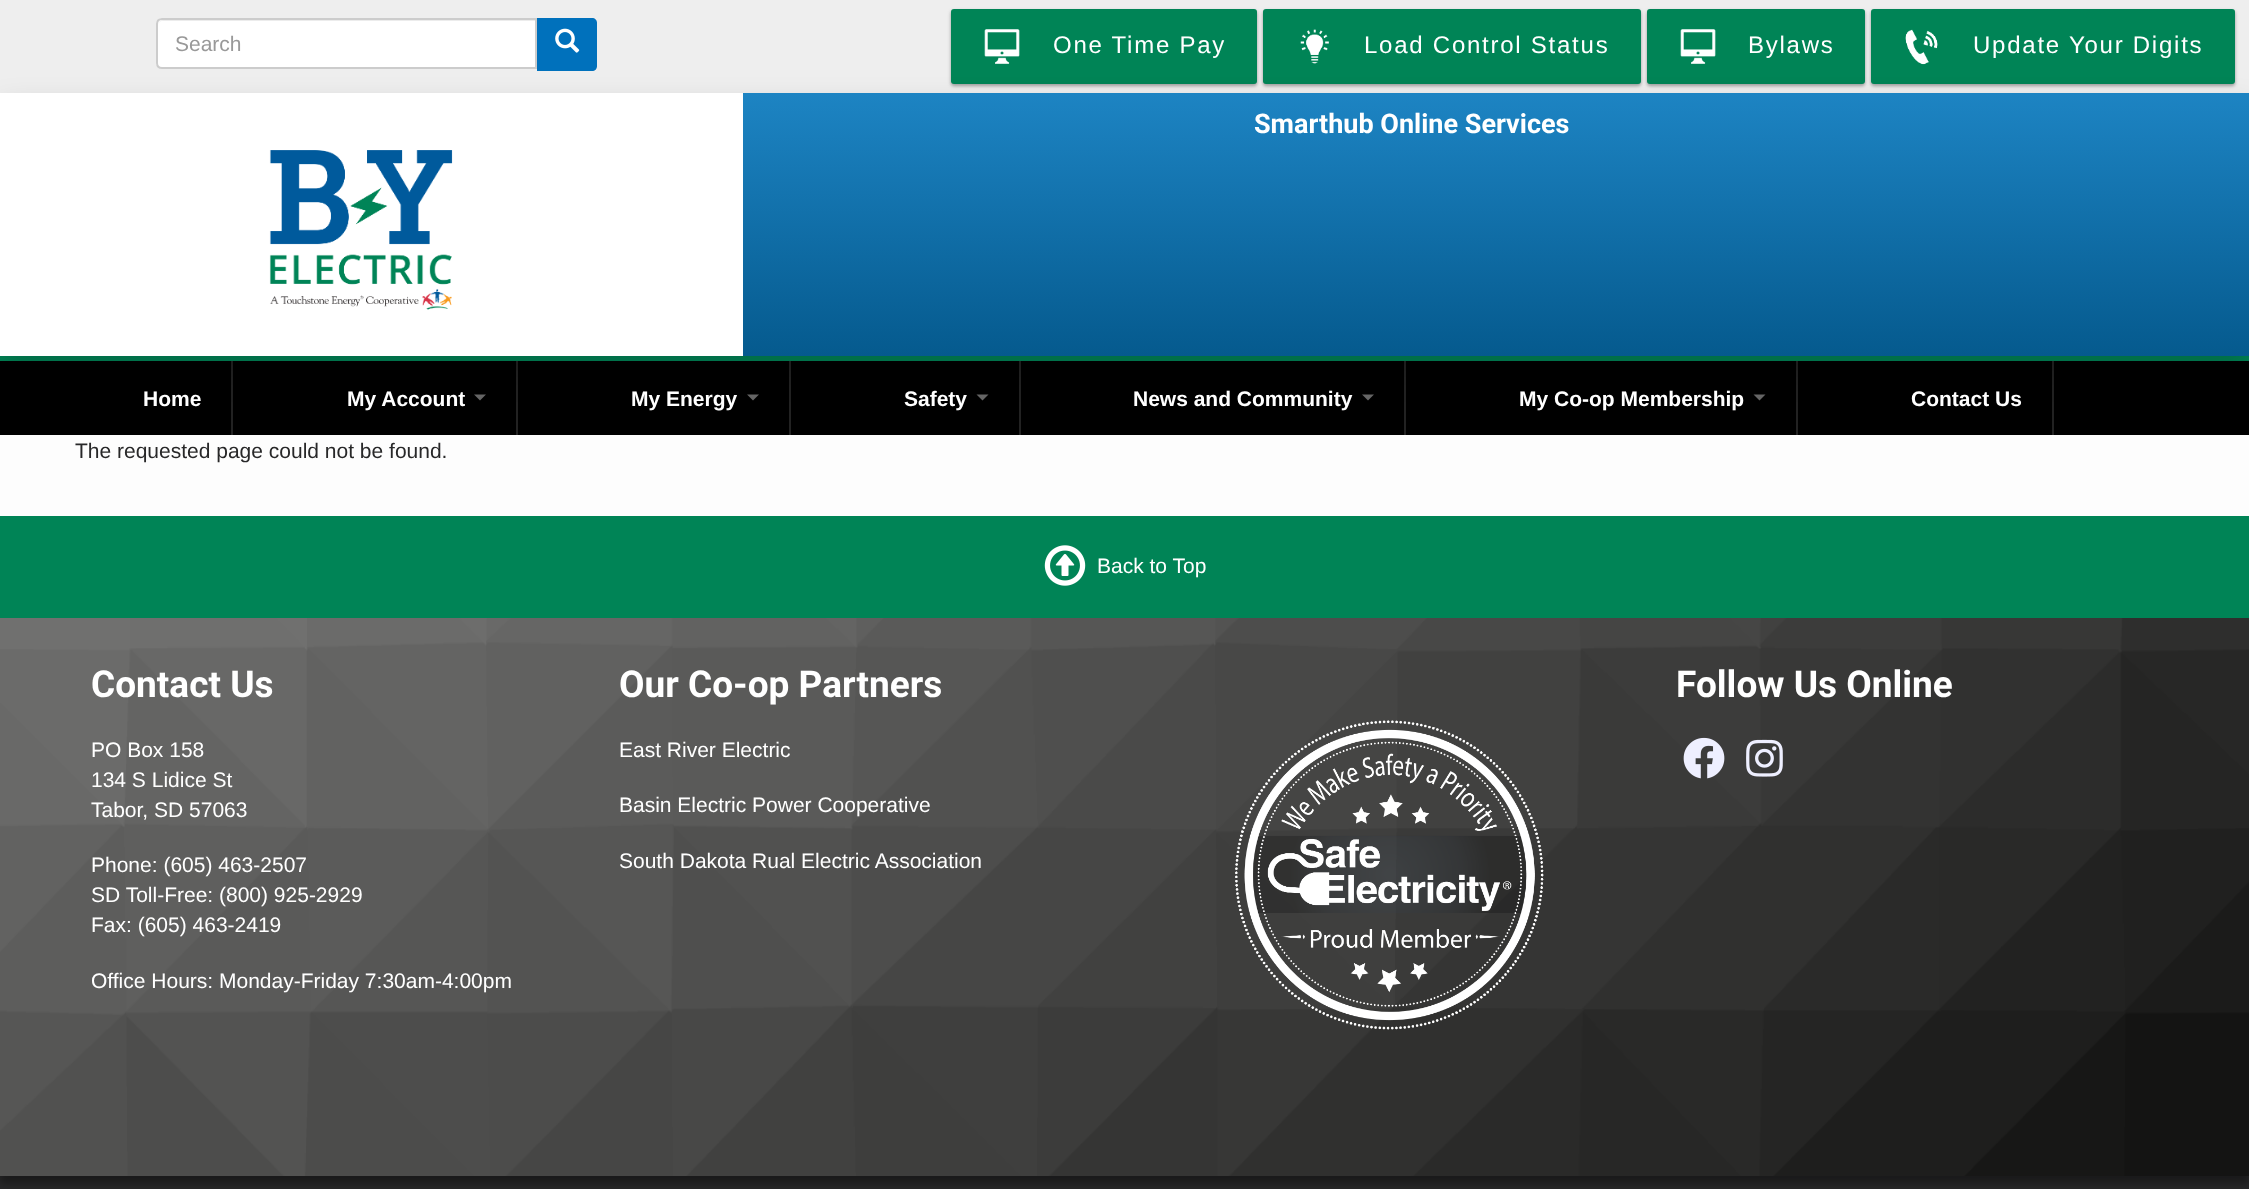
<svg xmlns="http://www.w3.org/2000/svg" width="2249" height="1189">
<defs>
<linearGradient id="g1" gradientUnits="userSpaceOnUse" x1="1125" y1="93" x2="1125" y2="356"><stop offset="0" stop-color="#1d84c3"/><stop offset="1" stop-color="#055a8e"/></linearGradient>
</defs>
<rect width="100%" height="100%" fill="#fdfdfd"/>
<rect width="2249" height="93" fill="#eee"/>
<path d="M162 18h375v51h-375c-3.5 0-6-2.5-6-6v-39c0-3.5 2.5-6 6-6z" fill="#fff"/>
<path d="M162 21h374v-1h-373c-3 0-5 3-5 6c0-3 2-5 4-5z" fill="#ececec"/>
<path d="M162 19h374v49h-374c-3 0-5-2-5-5v-39c0-3 2-5 5-5z" fill="none" stroke="#ccc" stroke-width="2"/>
<text x="175" y="51" style="font-family:Liberation Sans;font-size:21px;fill:#999">Search</text>
<path d="M537 18h55c3 0 5 2 5 5v43c0 3-2 5-5 5h-55z" fill="#0071bc"/>
<image x="555" y="28" width="25" height="25" href="media/1.png"/>
<rect x="951" y="11" width="306" height="75" rx="3" fill="#0000003d" filter="blur(1.5px)"/>
<rect x="951" y="11" width="306" height="75" rx="3" fill="#0000001f" filter="blur(2px)"/>
<rect x="951" y="9" width="306" height="75" rx="3" fill="#008456"/>
<image x="984" y="29" width="36" height="35" href="media/2.png"/>
<text x="1053" y="53" style="font-family:Liberation Sans;font-size:24px;letter-spacing:1.75px;fill:#fff">One Time Pay</text>
<rect x="1263" y="11" width="378" height="75" rx="3" fill="#0000003d" filter="blur(1.5px)"/>
<rect x="1263" y="11" width="378" height="75" rx="3" fill="#0000001f" filter="blur(2px)"/>
<rect x="1263" y="9" width="378" height="75" rx="3" fill="#008456"/>
<image x="1300" y="29" width="29" height="35" href="media/3.png"/>
<text x="1364" y="53" style="font-family:Liberation Sans;font-size:24px;letter-spacing:1.75px;fill:#fff">Load Control Status</text>
<rect x="1647" y="11" width="218" height="75" rx="3" fill="#0000003d" filter="blur(1.5px)"/>
<rect x="1647" y="11" width="218" height="75" rx="3" fill="#0000001f" filter="blur(2px)"/>
<rect x="1647" y="9" width="218" height="75" rx="3" fill="#008456"/>
<image x="1680" y="29" width="36" height="35" href="media/2.png"/>
<text x="1748" y="53" style="font-family:Liberation Sans;font-size:24px;letter-spacing:1.75px;fill:#fff">Bylaws</text>
<rect x="1871" y="11" width="364" height="75" rx="3" fill="#0000003d" filter="blur(1.5px)"/>
<rect x="1871" y="11" width="364" height="75" rx="3" fill="#0000001f" filter="blur(2px)"/>
<rect x="1871" y="9" width="364" height="75" rx="3" fill="#008456"/>
<image x="1905" y="29" width="33" height="36" href="media/4.png"/>
<text x="1973" y="53" style="font-family:Liberation Sans;font-size:24px;letter-spacing:1.75px;fill:#fff">Update Your Digits</text>
<rect y="361" width="2249" height="74" fill="#000"/>
<rect x="231" y="360" width="2" height="75" fill="#222"/>
<rect x="516" y="360" width="2" height="75" fill="#222"/>
<rect x="789" y="360" width="2" height="75" fill="#222"/>
<rect x="1019" y="360" width="2" height="75" fill="#222"/>
<rect x="1404" y="360" width="2" height="75" fill="#222"/>
<rect x="1796" y="360" width="2" height="75" fill="#222"/>
<rect x="2052" y="360" width="2" height="75" fill="#222"/>
<rect y="356" width="2249" height="5" fill="#008456"/>
<path d="M474 394.5h12l-6 6z" fill="#666"/>
<path d="M747 394.5h12l-6 6z" fill="#666"/>
<path d="M976.5 394.5h12l-6 6z" fill="#666"/>
<path d="M1362 394.5h12l-6 6z" fill="#666"/>
<path d="M1753.5 394.5h12l-6 6z" fill="#666"/>
<rect y="108" width="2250" height="263" fill="#0000002e" filter="blur(15px)"/>
<rect x="743" y="93" width="1506" height="263" fill="url(#g1)"/>
<rect y="93" width="743" height="263" fill="#fff"/>
<image x="269" y="150" width="184" height="160" href="media/5.png"/>
<text x="1254" y="133" style="font-family:Roboto;font-size:27px;font-weight:bold;fill:#fff">Smarthub Online Services</text>
<text x="143" y="406" style="font-family:Liberation Sans;font-size:21px;font-weight:bold;fill:#fff">Home</text>
<text x="347" y="406" style="font-family:Liberation Sans;font-size:21px;font-weight:bold;fill:#fff">My Account</text>
<text x="631" y="406" style="font-family:Liberation Sans;font-size:21px;font-weight:bold;fill:#fff">My Energy</text>
<text x="904" y="406" style="font-family:Liberation Sans;font-size:21px;font-weight:bold;fill:#fff">Safety</text>
<text x="1133" y="406" style="font-family:Liberation Sans;font-size:21px;font-weight:bold;fill:#fff">News and Community</text>
<text x="1519" y="406" style="font-family:Liberation Sans;font-size:21px;font-weight:bold;fill:#fff">My Co-op Membership</text>
<text x="1911" y="406" style="font-family:Liberation Sans;font-size:21px;font-weight:bold;fill:#fff">Contact Us</text>
<text x="75" y="458" style="font-family:Liberation Sans;font-size:21px;fill:#282829">The requested page could not be found.</text>
<rect y="1176" width="2249" height="13" fill="#282829"/>
<rect y="626" width="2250" height="558" fill="#00000059" filter="blur(4px)"/>
<rect y="516" width="2249" height="102" fill="#008456"/>
<image x="1044" y="545" width="42" height="41" href="media/6.png"/>
<text x="1097" y="573" style="font-family:Liberation Sans;font-size:21px;fill:#fff">Back to Top</text>
<rect y="618" width="2249" height="558" fill="#282827"/>
<image x="0" y="618" width="2249" height="558" href="media/7.png"/>
<text x="91" y="697" style="font-family:Roboto;font-size:37px;font-weight:bold;fill:#fff">Contact Us</text>
<text x="91" y="757" style="font-family:Liberation Sans;font-size:21px;fill:#fff">PO Box 158</text>
<text x="91" y="787" style="font-family:Liberation Sans;font-size:21px;fill:#fff">134 S Lidice St</text>
<text x="91" y="817" style="font-family:Liberation Sans;font-size:21px;fill:#fff">Tabor, SD 57063</text>
<text x="91" y="872" style="font-family:Liberation Sans;font-size:21px;fill:#fff">Phone: (605) 463-2507</text>
<text x="91" y="902" style="font-family:Liberation Sans;font-size:21px;fill:#fff">SD Toll-Free: (800) 925-2929</text>
<text x="91" y="932" style="font-family:Liberation Sans;font-size:21px;fill:#fff">Fax: (605) 463-2419</text>
<text x="91" y="988" style="font-family:Liberation Sans;font-size:21px;fill:#fff">Office Hours: Monday-Friday 7:30am-4:00pm</text>
<text x="619" y="697" style="font-family:Roboto;font-size:37px;font-weight:bold;fill:#fff">Our Co-op Partners</text>
<text x="619" y="757" style="font-family:Liberation Sans;font-size:21px;fill:#fff">East River Electric</text>
<text x="619" y="812" style="font-family:Liberation Sans;font-size:21px;fill:#fff">Basin Electric Power Cooperative</text>
<text x="619" y="868" style="font-family:Liberation Sans;font-size:21px;fill:#fff">South Dakota Rual Electric Association</text>
<image x="1235" y="720" width="309" height="310" href="media/8.png"/>
<text x="1676" y="697" style="font-family:Roboto;font-size:37px;font-weight:bold;fill:#fff">Follow Us Online</text>
<image x="1683" y="737" width="42" height="42" href="media/9.png"/>
<image x="1746" y="739" width="37" height="38" href="media/10.png"/>
</svg>
